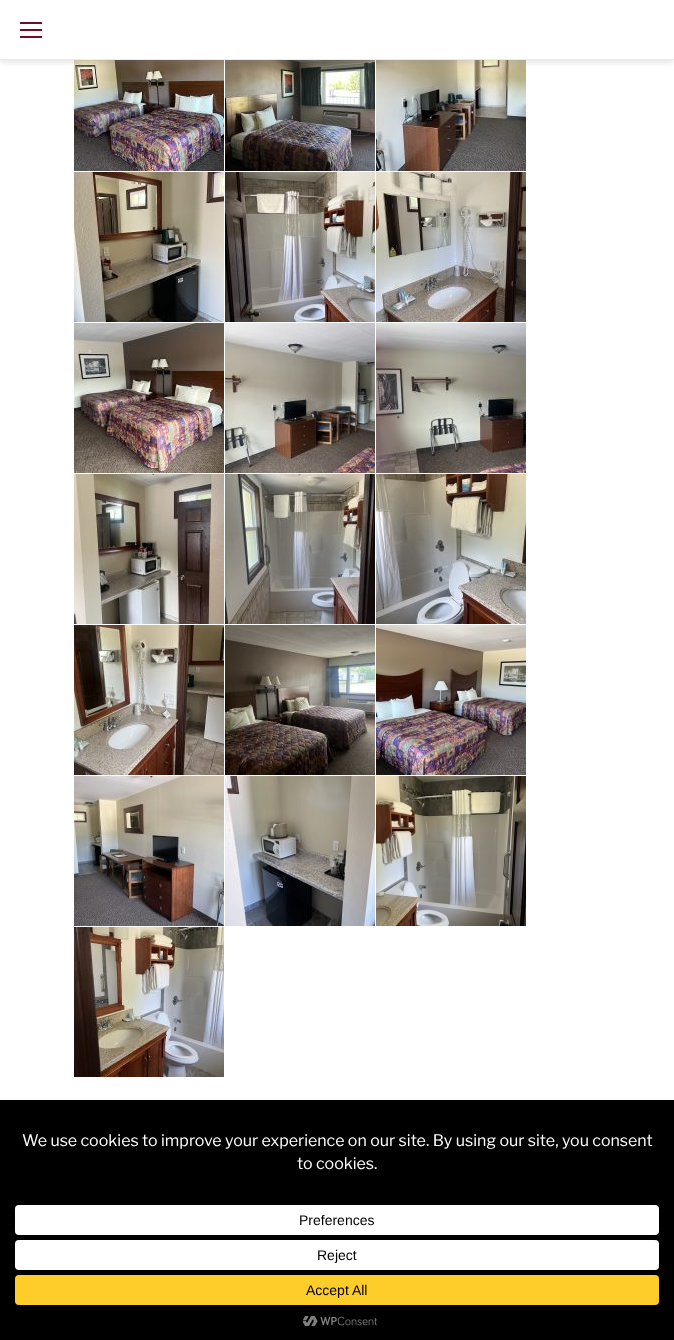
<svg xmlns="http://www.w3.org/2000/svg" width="674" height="1340">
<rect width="100%" height="100%" fill="#fff"/>
<image x="74" y="60" width="150" height="111" href="media/1.png"/>
<image x="225" y="60" width="150" height="111" href="media/2.png"/>
<image x="376" y="60" width="150" height="111" href="media/3.png"/>
<rect y="2" width="674" height="60" fill="#88888842" filter="blur(3px)"/>
<rect width="674" height="59" fill="#fff"/>
<rect y="59" width="674" height="1" fill="#ececee"/>
<rect x="20" y="29" width="22" height="2" fill="#730b2e"/>
<rect x="20" y="22" width="22" height="2" fill="#730b2e"/>
<rect x="20" y="36" width="22" height="2" fill="#730b2e"/>
<image x="74" y="172" width="150" height="150" href="media/4.png"/>
<image x="225" y="172" width="150" height="150" href="media/5.png"/>
<image x="376" y="172" width="150" height="150" href="media/6.png"/>
<image x="74" y="323" width="150" height="150" href="media/7.png"/>
<image x="225" y="323" width="150" height="150" href="media/8.png"/>
<image x="376" y="323" width="150" height="150" href="media/9.png"/>
<image x="74" y="474" width="150" height="150" href="media/10.png"/>
<image x="225" y="474" width="150" height="150" href="media/11.png"/>
<image x="376" y="474" width="150" height="150" href="media/12.png"/>
<image x="74" y="625" width="150" height="150" href="media/13.png"/>
<image x="225" y="625" width="150" height="150" href="media/14.png"/>
<image x="376" y="625" width="150" height="150" href="media/15.png"/>
<image x="74" y="776" width="150" height="150" href="media/16.png"/>
<image x="225" y="776" width="150" height="150" href="media/17.png"/>
<image x="376" y="776" width="150" height="150" href="media/18.png"/>
<image x="74" y="927" width="150" height="150" href="media/19.png"/>
<rect y="1100" width="674" height="240" fill="#000"/>
<text x="22" y="1146" style="font-family:Libre Franklin;font-size:16px;fill:#fff">We use cookies to improve your experience on our site. By using our site, you consent</text>
<text x="297" y="1169" style="font-family:Libre Franklin;font-size:16px;fill:#fff">to cookies.</text>
<rect x="15" y="1205" width="644" height="30" rx="4" fill="#fff"/>
<text x="299" y="1225" style="font-family:Liberation Sans;font-size:14px;fill:#000">Preferences</text>
<rect x="15" y="1240" width="644" height="30" rx="4" fill="#fff"/>
<text x="317" y="1260" style="font-family:Liberation Sans;font-size:14px;fill:#000">Reject</text>
<rect x="15" y="1275" width="644" height="30" rx="4" fill="#ffcd2a"/>
<text x="306" y="1295" style="font-family:Liberation Sans;font-size:14px;fill:#000">Accept All</text>
<image x="302" y="1316" width="75" height="11" href="media/20.png"/>
</svg>
